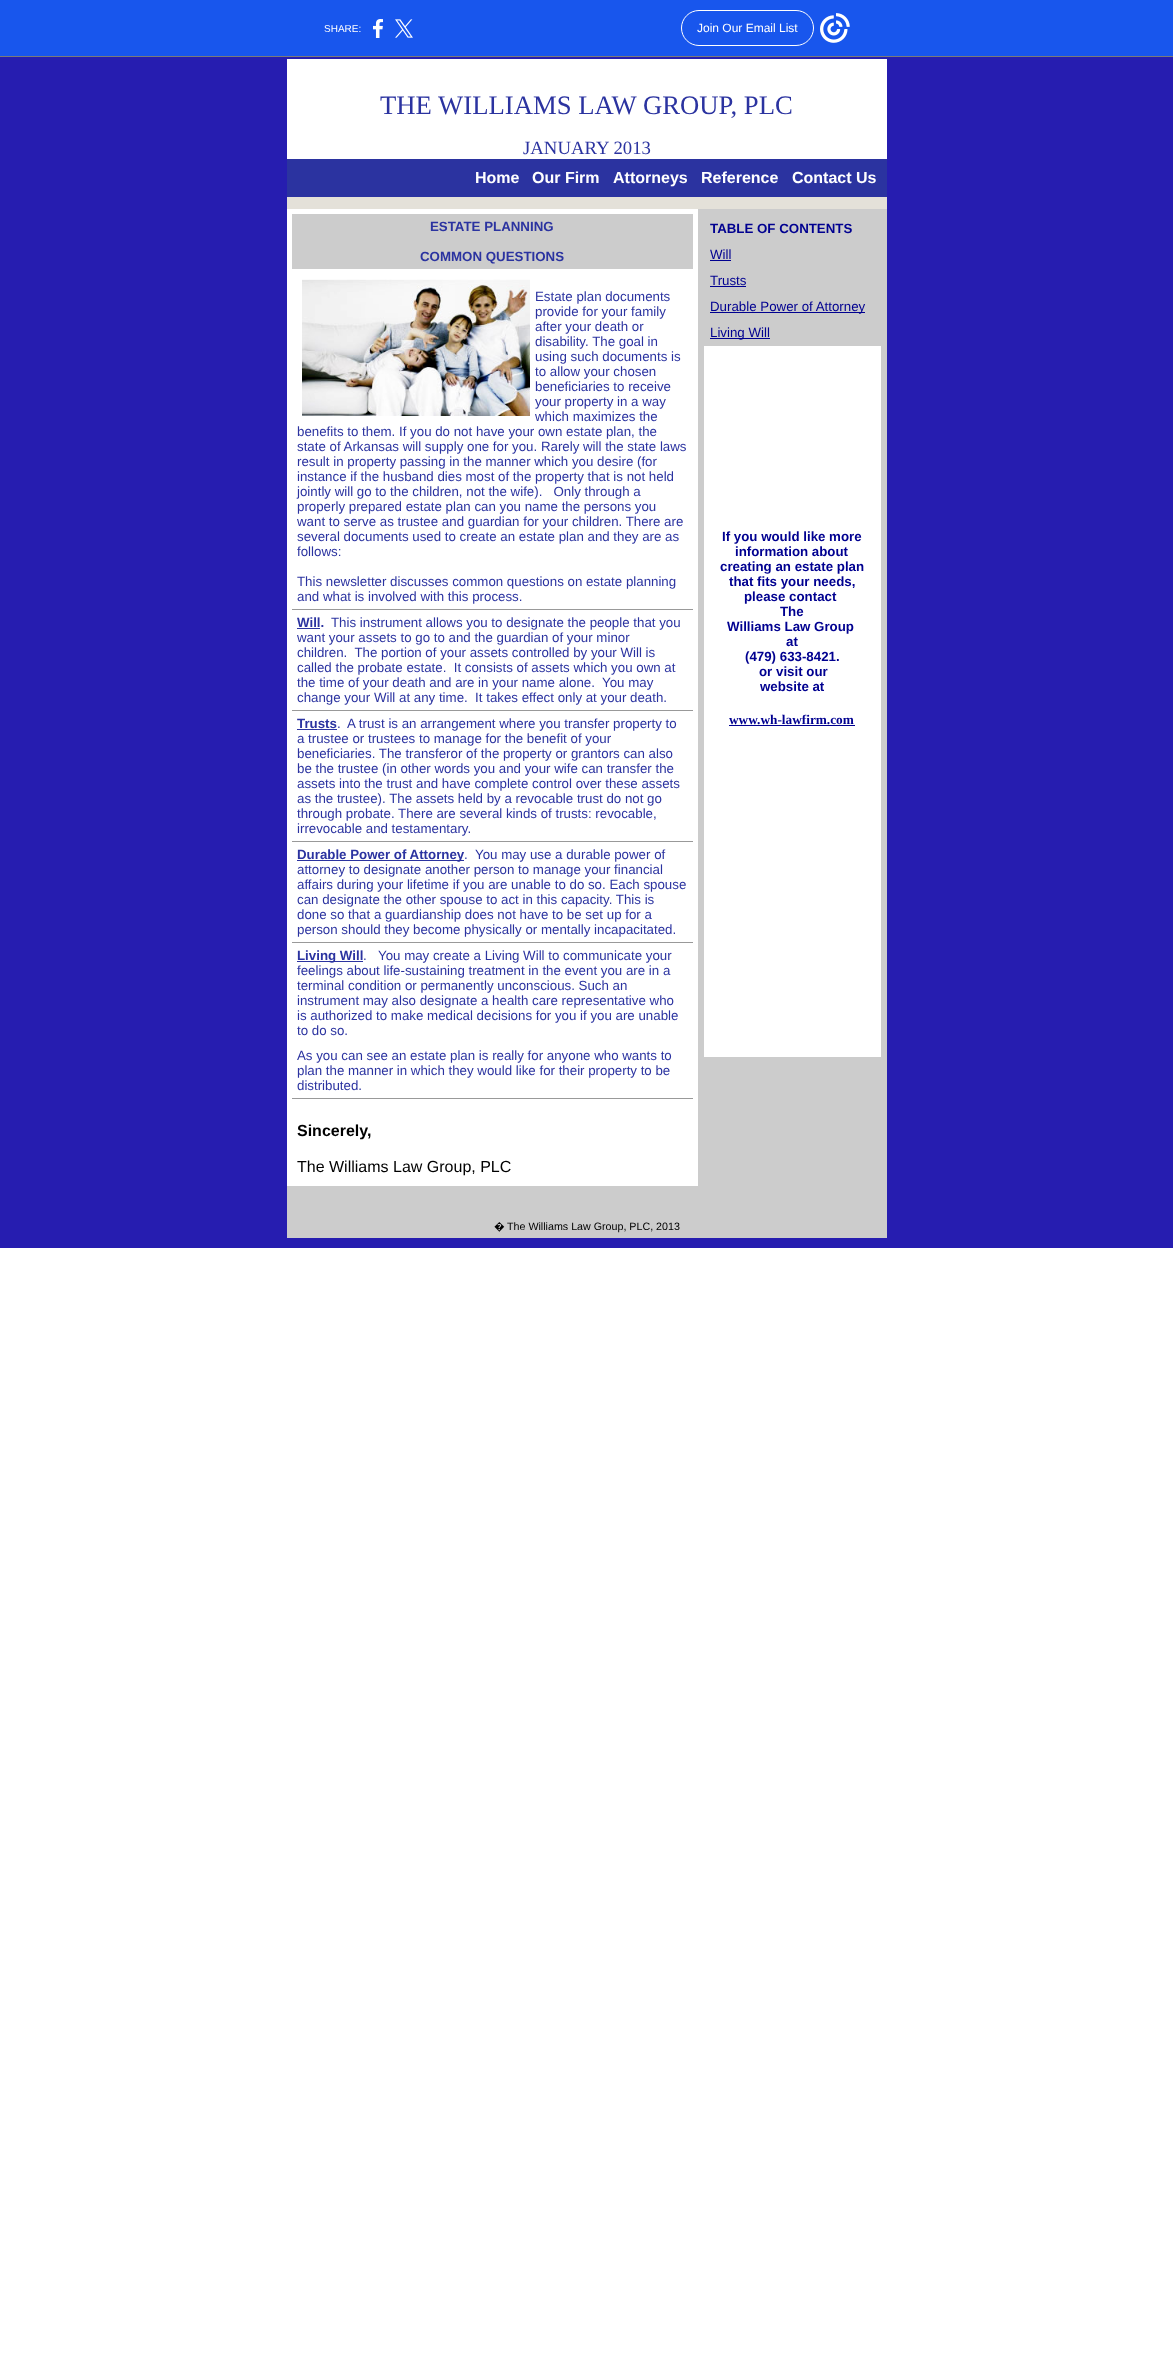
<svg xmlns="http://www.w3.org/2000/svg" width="1173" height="2366">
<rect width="100%" height="100%" fill="#fff"/>
<rect width="1173" height="56" fill="#1856ed"/>
<rect y="56" width="1173" height="1" fill="#7a7a7a"/>
<text x="324" y="32" style="font-family:Liberation Sans;font-size:10px;fill:#fff">SHARE:</text>
<image x="373" y="19" width="10" height="19" href="media/1.png"/>
<image x="395" y="19" width="18" height="19" href="media/2.png"/>
<rect x="681.5" y="10.5" width="132" height="35" rx="17.5" fill="none" stroke="#fff"/>
<text x="697" y="32" style="font-family:Liberation Sans;font-size:12px;fill:#fff">Join Our Email List</text>
<image x="820" y="13" width="30" height="30" href="media/3.png"/>
<rect y="57" width="1173" height="1191" fill="#261db0"/>
<rect x="287" y="59" width="600" height="100" fill="#fff"/>
<text x="380" y="114" style="font-family:Liberation Serif;font-size:26.7px;fill:#2b33a0">THE WILLIAMS LAW GROUP, PLC</text>
<text x="523" y="154" style="font-family:Liberation Serif;font-size:18.75px;fill:#2b33a0">JANUARY 2013</text>
<rect x="287" y="159" width="600" height="38" fill="#2b33a0"/>
<text x="475" y="183" style="font-family:Liberation Sans;font-size:16px;font-weight:bold;fill:#fff">Home</text>
<text x="532" y="183" style="font-family:Liberation Sans;font-size:16px;font-weight:bold;fill:#fff">Our Firm</text>
<text x="613" y="183" style="font-family:Liberation Sans;font-size:16px;font-weight:bold;fill:#fff">Attorneys</text>
<text x="701" y="183" style="font-family:Liberation Sans;font-size:16px;font-weight:bold;fill:#fff">Reference</text>
<text x="792" y="183" style="font-family:Liberation Sans;font-size:16px;font-weight:bold;fill:#fff">Contact Us</text>
<rect x="287" y="197" width="600" height="12" fill="#e4e1d9"/>
<rect x="287" y="209" width="411" height="977" fill="#fff"/>
<rect x="292" y="214" width="401" height="55" fill="#ccc"/>
<text x="430" y="231" style="font-family:Liberation Sans;font-size:13.3px;font-weight:bold;fill:#2b33a0">ESTATE PLANNING</text>
<text x="420" y="261" style="font-family:Liberation Sans;font-size:13.3px;font-weight:bold;fill:#2b33a0">COMMON QUESTIONS</text>
<image x="302" y="279" width="228" height="137" href="media/4.png"/>
<text x="535" y="301" style="font-family:Liberation Sans;font-size:13.3px;fill:#2b33a0">Estate plan documents</text>
<text x="535" y="316" style="font-family:Liberation Sans;font-size:13.3px;fill:#2b33a0">provide for your family</text>
<text x="535" y="331" style="font-family:Liberation Sans;font-size:13.3px;fill:#2b33a0">after your death or</text>
<text x="535" y="346" style="font-family:Liberation Sans;font-size:13.3px;fill:#2b33a0">disability. The goal in</text>
<text x="535" y="361" style="font-family:Liberation Sans;font-size:13.3px;fill:#2b33a0">using such documents is</text>
<text x="535" y="376" style="font-family:Liberation Sans;font-size:13.3px;fill:#2b33a0">to allow your chosen</text>
<text x="535" y="391" style="font-family:Liberation Sans;font-size:13.3px;fill:#2b33a0">beneficiaries to receive</text>
<text x="535" y="406" style="font-family:Liberation Sans;font-size:13.3px;fill:#2b33a0">your property in a way</text>
<text x="535" y="421" style="font-family:Liberation Sans;font-size:13.3px;fill:#2b33a0">which maximizes the</text>
<text x="297" y="436" style="font-family:Liberation Sans;font-size:13.3px;fill:#2b33a0">benefits to them. If you do not have your own estate plan, the</text>
<text x="297" y="451" style="font-family:Liberation Sans;font-size:13.3px;fill:#2b33a0">state of Arkansas will supply one for you. Rarely will the state laws</text>
<text x="297" y="466" style="font-family:Liberation Sans;font-size:13.3px;fill:#2b33a0">result in property passing in the manner which you desire (for</text>
<text x="297" y="481" style="font-family:Liberation Sans;font-size:13.3px;fill:#2b33a0">instance if the husband dies most of the property that is not held</text>
<text x="297" y="496" style="font-family:Liberation Sans;font-size:13.3px;fill:#2b33a0" xml:space="preserve">jointly will go to the children, not the wife).   Only through a</text>
<text x="297" y="511" style="font-family:Liberation Sans;font-size:13.3px;fill:#2b33a0">properly prepared estate plan can you name the persons you</text>
<text x="297" y="526" style="font-family:Liberation Sans;font-size:13.3px;fill:#2b33a0">want to serve as trustee and guardian for your children. There are</text>
<text x="297" y="541" style="font-family:Liberation Sans;font-size:13.3px;fill:#2b33a0">several documents used to create an estate plan and they are as</text>
<text x="297" y="556" style="font-family:Liberation Sans;font-size:13.3px;fill:#2b33a0">follows:</text>
<text x="297" y="586" style="font-family:Liberation Sans;font-size:13.3px;fill:#2b33a0">This newsletter discusses common questions on estate planning</text>
<text x="297" y="601" style="font-family:Liberation Sans;font-size:13.3px;fill:#2b33a0">and what is involved with this process.</text>
<rect x="292" y="609" width="401" height="1" fill="#999"/>
<text x="297" y="627" style="font-family:Liberation Sans;font-size:13.3px;font-weight:bold;fill:#2b33a0">Will.</text>
<rect x="297" y="628" width="23" height="1" fill="#2b33a0"/>
<text x="331" y="627" style="font-family:Liberation Sans;font-size:13.3px;fill:#2b33a0">This instrument allows you to designate the people that you</text>
<text x="297" y="642" style="font-family:Liberation Sans;font-size:13.3px;fill:#2b33a0">want your assets to go to and the guardian of your minor</text>
<text x="297" y="657" style="font-family:Liberation Sans;font-size:13.3px;fill:#2b33a0" xml:space="preserve">children.  The portion of your assets controlled by your Will is</text>
<text x="297" y="672" style="font-family:Liberation Sans;font-size:13.3px;fill:#2b33a0" xml:space="preserve">called the probate estate.  It consists of assets which you own at</text>
<text x="297" y="687" style="font-family:Liberation Sans;font-size:13.3px;fill:#2b33a0" xml:space="preserve">the time of your death and are in your name alone.  You may</text>
<text x="297" y="702" style="font-family:Liberation Sans;font-size:13.3px;fill:#2b33a0" xml:space="preserve">change your Will at any time.  It takes effect only at your death.</text>
<rect x="292" y="710" width="401" height="1" fill="#999"/>
<text x="297" y="728" style="font-family:Liberation Sans;font-size:13.3px;font-weight:bold;fill:#2b33a0">Trusts</text>
<text x="337" y="728" style="font-family:Liberation Sans;font-size:13.3px;fill:#2b33a0">.</text>
<rect x="297" y="729" width="40" height="1" fill="#2b33a0"/>
<text x="347" y="728" style="font-family:Liberation Sans;font-size:13.3px;fill:#2b33a0">A trust is an arrangement where you transfer property to</text>
<text x="297" y="743" style="font-family:Liberation Sans;font-size:13.3px;fill:#2b33a0">a trustee or trustees to manage for the benefit of your</text>
<text x="297" y="758" style="font-family:Liberation Sans;font-size:13.3px;fill:#2b33a0">beneficiaries. The transferor of the property or grantors can also</text>
<text x="297" y="773" style="font-family:Liberation Sans;font-size:13.3px;fill:#2b33a0">be the trustee (in other words you and your wife can transfer the</text>
<text x="297" y="788" style="font-family:Liberation Sans;font-size:13.3px;fill:#2b33a0">assets into the trust and have complete control over these assets</text>
<text x="297" y="803" style="font-family:Liberation Sans;font-size:13.3px;fill:#2b33a0">as the trustee). The assets held by a revocable trust do not go</text>
<text x="297" y="818" style="font-family:Liberation Sans;font-size:13.3px;fill:#2b33a0">through probate. There are several kinds of trusts: revocable,</text>
<text x="297" y="833" style="font-family:Liberation Sans;font-size:13.3px;fill:#2b33a0">irrevocable and testamentary.</text>
<rect x="292" y="841" width="401" height="1" fill="#999"/>
<rect x="297" y="860" width="167" height="1" fill="#2b33a0"/>
<text x="297" y="859" style="font-family:Liberation Sans;font-size:13.3px;font-weight:bold;fill:#2b33a0">Durable Power of Attorney</text>
<text x="464" y="859" style="font-family:Liberation Sans;font-size:13.3px;fill:#2b33a0">.</text>
<text x="475" y="859" style="font-family:Liberation Sans;font-size:13.3px;fill:#2b33a0">You may use a durable power of</text>
<text x="297" y="874" style="font-family:Liberation Sans;font-size:13.3px;fill:#2b33a0">attorney to designate another person to manage your financial</text>
<text x="297" y="889" style="font-family:Liberation Sans;font-size:13.3px;fill:#2b33a0">affairs during your lifetime if you are unable to do so. Each spouse</text>
<text x="297" y="904" style="font-family:Liberation Sans;font-size:13.3px;fill:#2b33a0">can designate the other spouse to act in this capacity. This is</text>
<text x="297" y="919" style="font-family:Liberation Sans;font-size:13.3px;fill:#2b33a0">done so that a guardianship does not have to be set up for a</text>
<text x="297" y="934" style="font-family:Liberation Sans;font-size:13.3px;fill:#2b33a0">person should they become physically or mentally incapacitated.</text>
<rect x="292" y="942" width="401" height="1" fill="#999"/>
<rect x="297" y="961" width="66" height="1" fill="#2b33a0"/>
<text x="297" y="960" style="font-family:Liberation Sans;font-size:13.3px;font-weight:bold;fill:#2b33a0">Living Will</text>
<text x="363" y="960" style="font-family:Liberation Sans;font-size:13.3px;fill:#2b33a0">.</text>
<text x="378" y="960" style="font-family:Liberation Sans;font-size:13.3px;fill:#2b33a0">You may create a Living Will to communicate your</text>
<text x="297" y="975" style="font-family:Liberation Sans;font-size:13.3px;fill:#2b33a0">feelings about life-sustaining treatment in the event you are in a</text>
<text x="297" y="990" style="font-family:Liberation Sans;font-size:13.3px;fill:#2b33a0">terminal condition or permanently unconscious. Such an</text>
<text x="297" y="1005" style="font-family:Liberation Sans;font-size:13.3px;fill:#2b33a0">instrument may also designate a health care representative who</text>
<text x="297" y="1020" style="font-family:Liberation Sans;font-size:13.3px;fill:#2b33a0">is authorized to make medical decisions for you if you are unable</text>
<text x="297" y="1035" style="font-family:Liberation Sans;font-size:13.3px;fill:#2b33a0">to do so.</text>
<text x="297" y="1060" style="font-family:Liberation Sans;font-size:13.3px;fill:#2b33a0">As you can see an estate plan is really for anyone who wants to</text>
<text x="297" y="1075" style="font-family:Liberation Sans;font-size:13.3px;fill:#2b33a0">plan the manner in which they would like for their property to be</text>
<text x="297" y="1090" style="font-family:Liberation Sans;font-size:13.3px;fill:#2b33a0">distributed.</text>
<rect x="292" y="1098" width="401" height="1" fill="#999"/>
<text x="297" y="1136" style="font-family:Liberation Sans;font-size:16px;font-weight:bold;fill:#000">Sincerely,</text>
<text x="297" y="1172" style="font-family:Liberation Sans;font-size:16px;fill:#000">The Williams Law Group, PLC</text>
<rect x="698" y="209" width="189" height="977" fill="#ccc"/>
<text x="710" y="233" style="font-family:Liberation Sans;font-size:13.3px;font-weight:bold;fill:#000090">TABLE OF CONTENTS</text>
<text x="710" y="259" style="font-family:Liberation Sans;font-size:13.3px;fill:#000090">Will</text>
<rect x="710" y="260" width="21" height="1" fill="#000090"/>
<text x="710" y="285" style="font-family:Liberation Sans;font-size:13.3px;fill:#000090">Trusts</text>
<rect x="710" y="286" width="36" height="1" fill="#000090"/>
<rect x="710" y="312" width="155" height="1" fill="#000090"/>
<text x="710" y="311" style="font-family:Liberation Sans;font-size:13.3px;fill:#000090">Durable Power of Attorney</text>
<rect x="710" y="338" width="60" height="1" fill="#000090"/>
<text x="710" y="337" style="font-family:Liberation Sans;font-size:13.3px;fill:#000090">Living Will</text>
<rect x="704" y="346" width="177" height="711" fill="#fff"/>
<text x="722" y="541" style="font-family:Liberation Sans;font-size:13.3px;font-weight:bold;fill:#000090">If you would like more</text>
<text x="735" y="556" style="font-family:Liberation Sans;font-size:13.3px;font-weight:bold;fill:#000090">information about</text>
<text x="720" y="571" style="font-family:Liberation Sans;font-size:13.3px;font-weight:bold;fill:#000090">creating an estate plan</text>
<text x="729" y="586" style="font-family:Liberation Sans;font-size:13.3px;font-weight:bold;fill:#000090">that fits your needs,</text>
<text x="744" y="601" style="font-family:Liberation Sans;font-size:13.3px;font-weight:bold;fill:#000090">please contact</text>
<text x="780" y="616" style="font-family:Liberation Sans;font-size:13.3px;font-weight:bold;fill:#000090">The</text>
<text x="727" y="631" style="font-family:Liberation Sans;font-size:13.3px;font-weight:bold;fill:#000090">Williams Law Group</text>
<text x="786" y="646" style="font-family:Liberation Sans;font-size:13.3px;font-weight:bold;fill:#000090">at</text>
<text x="745" y="661" style="font-family:Liberation Sans;font-size:13.3px;font-weight:bold;fill:#000090">(479) 633-8421.</text>
<text x="759" y="676" style="font-family:Liberation Sans;font-size:13.3px;font-weight:bold;fill:#000090">or visit our</text>
<text x="760" y="691" style="font-family:Liberation Sans;font-size:13.3px;font-weight:bold;fill:#000090">website at</text>
<text x="729" y="724" style="font-family:Liberation Serif;font-size:13.3px;font-weight:bold;fill:#000090">www.wh-lawfirm.com</text>
<rect x="729" y="725" width="126" height="1" fill="#000090"/>
<rect x="287" y="1186" width="600" height="52" fill="#ccc"/>
<text x="494" y="1230" style="font-family:Noto Sans;font-size:10.7px;fill:#000">�</text>
<text x="507" y="1230" style="font-family:Liberation Sans;font-size:10.7px;fill:#000">The Williams Law Group, PLC, 2013</text>
</svg>
